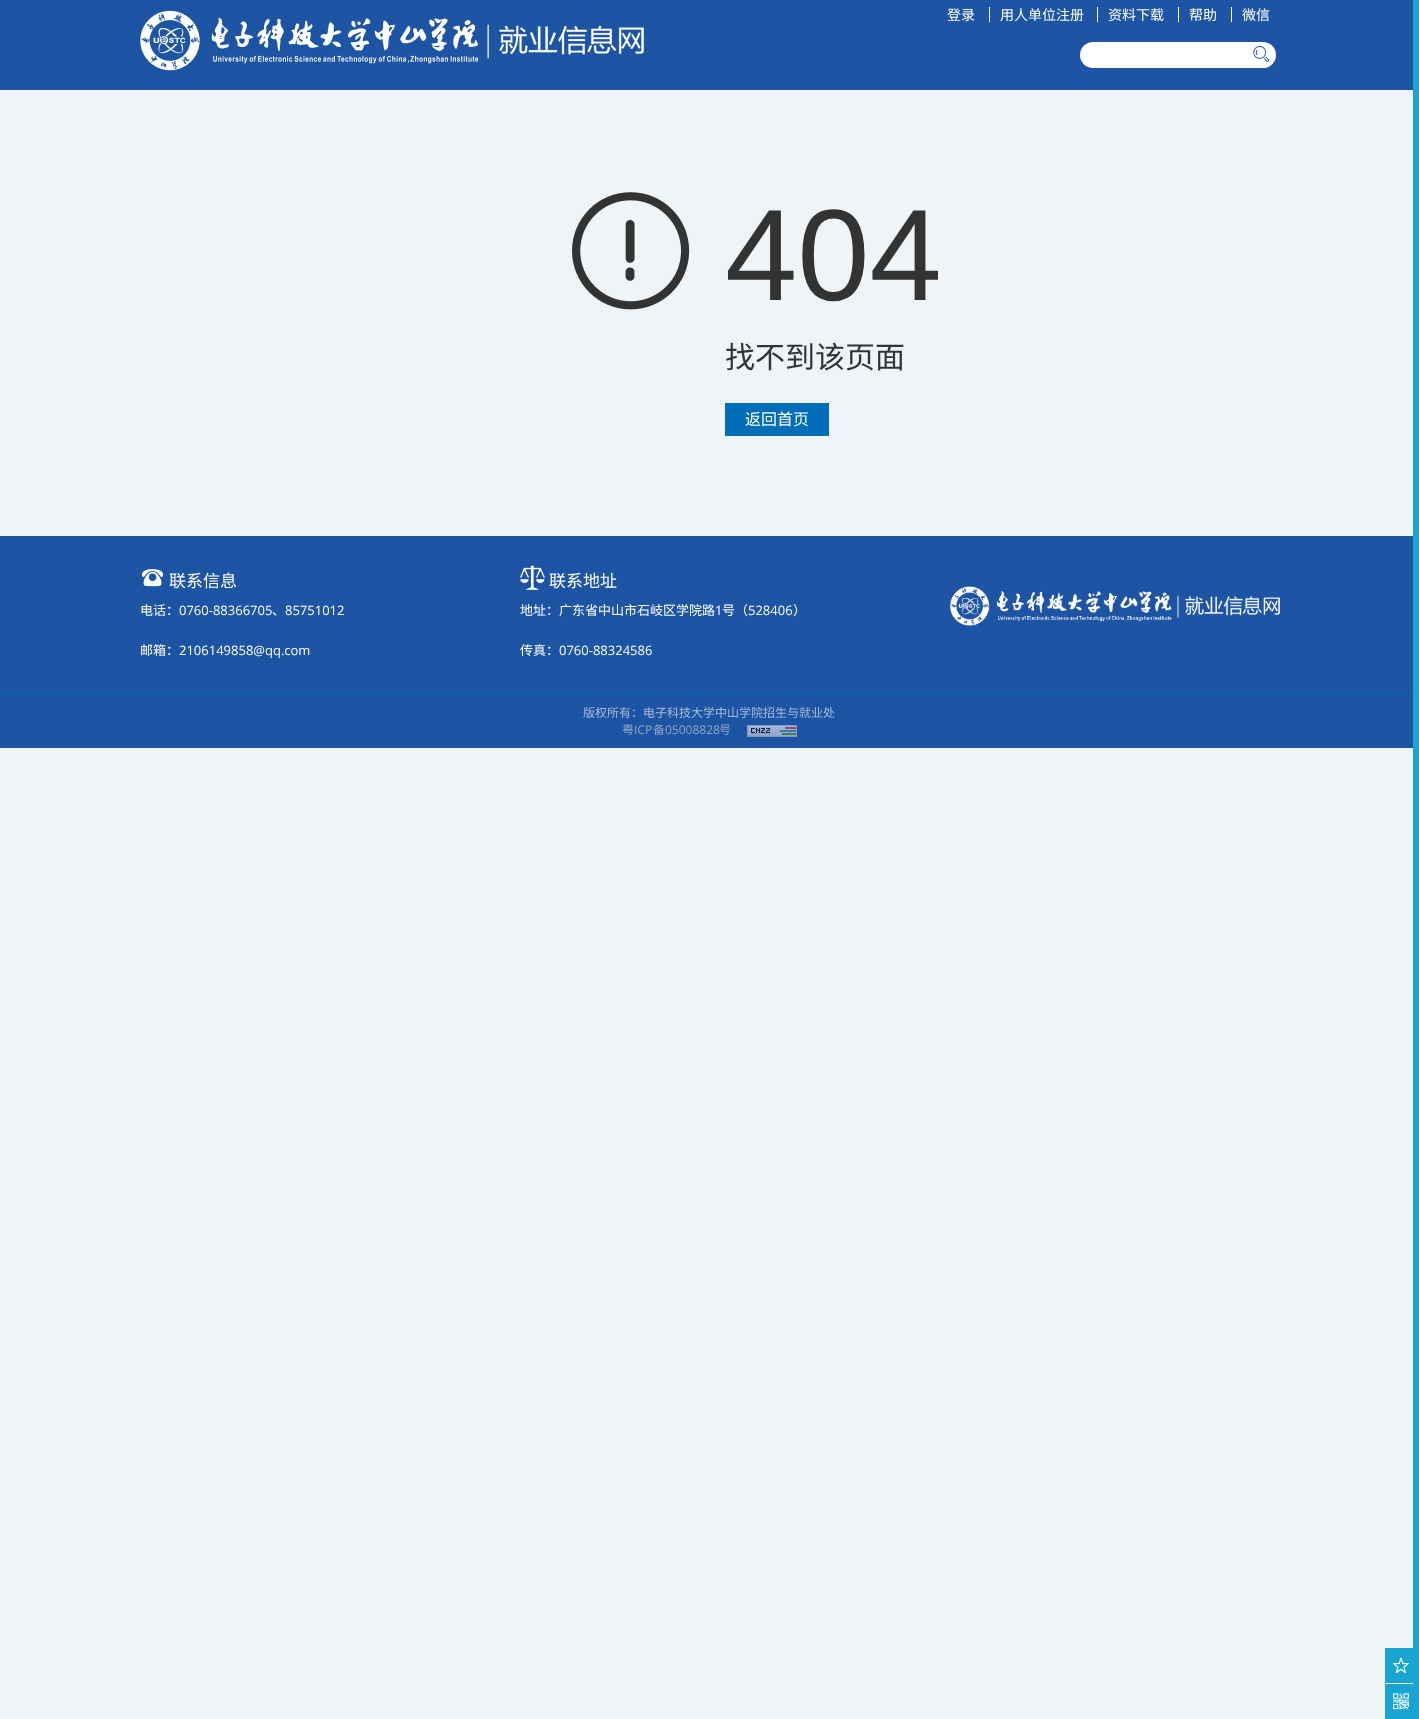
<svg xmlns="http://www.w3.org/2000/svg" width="1419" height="1719">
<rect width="100%" height="100%" fill="#eff4f8"/>
<rect width="1413" height="90" fill="#1e54a4"/>
<image x="140" y="10" width="504" height="61" href="media/1.png"/>
<text x="947" y="20" style="font-family:Noto Sans CJK SC;font-size:14px;fill:#fff">登录</text>
<rect x="989" y="7" width="1" height="15" fill="#fff"/>
<text x="1000" y="20" style="font-family:Noto Sans CJK SC;font-size:14px;fill:#fff">用人单位注册</text>
<rect x="1097" y="7" width="1" height="15" fill="#fff"/>
<text x="1108" y="20" style="font-family:Noto Sans CJK SC;font-size:14px;fill:#fff">资料下载</text>
<rect x="1178" y="7" width="1" height="15" fill="#fff"/>
<text x="1189" y="20" style="font-family:Noto Sans CJK SC;font-size:14px;fill:#fff">帮助</text>
<rect x="1231" y="7" width="1" height="15" fill="#fff"/>
<text x="1242" y="20" style="font-family:Noto Sans CJK SC;font-size:14px;fill:#fff">微信</text>
<rect x="1079" y="41" width="198" height="28" rx="14" fill="#fff" stroke="#1e54a4" stroke-width="2"/>
<image x="1253" y="46" width="17" height="16" href="media/2.png"/>
<rect y="536" width="1413" height="212" fill="#1e54a4"/>
<rect y="693" width="1419" height="1" fill="#0c63b0"/>
<rect x="1413" width="6" height="1684" fill="#1aa4d2"/>
<rect x="1385" y="1648" width="28" height="35" fill="#1aa4d2"/>
<image x="1393" y="1657" width="16" height="17" href="media/3.png"/>
<rect x="1385" y="1684" width="34" height="35" fill="#1aa4d2"/>
<image x="1393" y="1693" width="16" height="17" href="media/4.png"/>
<image x="572" y="192" width="118" height="118" href="media/5.png"/>
<text x="725" y="300" style="font-family:Liberation Sans;font-size:130px;fill:#333">404</text>
<text x="725" y="368" style="font-family:Noto Sans CJK SC;font-size:30px;fill:#333">找不到该页面</text>
<rect x="725" y="403" width="104" height="33" fill="#006db8"/>
<text x="745" y="425" style="font-family:Noto Sans CJK SC;font-size:16px;fill:#fff">返回首页</text>
<image x="141" y="569" width="23" height="18" href="media/6.png"/>
<text x="169" y="587" style="font-family:Noto Sans CJK SC;font-size:17px;fill:#fff">联系信息</text>
<text x="140" y="615" style="font-family:Noto Sans CJK SC;font-size:13px;fill:#fff">电话：</text>
<text x="179" y="615" style="font-family:Open Sans;font-size:13px;fill:#fff">0760-88366705</text>
<text x="272" y="615" style="font-family:Noto Sans CJK SC;font-size:13px;fill:#fff">、</text>
<text x="285" y="615" style="font-family:Open Sans;font-size:13px;fill:#fff">85751012</text>
<text x="140" y="655" style="font-family:Noto Sans CJK SC;font-size:13px;fill:#fff">邮箱：</text>
<text x="179" y="655" style="font-family:Open Sans;font-size:13px;fill:#fff">2106149858@qq.com</text>
<image x="520" y="565" width="25" height="25" href="media/7.png"/>
<text x="549" y="587" style="font-family:Noto Sans CJK SC;font-size:17px;fill:#fff">联系地址</text>
<text x="520" y="615" style="font-family:Noto Sans CJK SC;font-size:13px;fill:#fff">地址：广东省中山市石岐区学院路</text>
<text x="715" y="615" style="font-family:Open Sans;font-size:13px;fill:#fff">1</text>
<text x="722" y="615" style="font-family:Noto Sans CJK SC;font-size:13px;fill:#fff">号（</text>
<text x="748" y="615" style="font-family:Open Sans;font-size:13px;fill:#fff">528406</text>
<text x="793" y="615" style="font-family:Noto Sans CJK SC;font-size:13px;fill:#fff">）</text>
<text x="520" y="655" style="font-family:Noto Sans CJK SC;font-size:13px;fill:#fff">传真：</text>
<text x="559" y="655" style="font-family:Open Sans;font-size:13px;fill:#fff">0760-88324586</text>
<image x="950" y="586" width="330" height="40" href="media/8.png"/>
<text x="583" y="717" style="font-family:Noto Sans CJK SC;font-size:12px;fill:#a5bbdb">版权所有：电子科技大学中山学院招生与就业处</text>
<text x="622" y="734" style="font-family:Noto Sans CJK SC;font-size:12px;fill:#90a6c6">粤</text>
<text x="634" y="734" style="font-family:Open Sans;font-size:12px;fill:#90a6c6">ICP</text>
<text x="653" y="734" style="font-family:Noto Sans CJK SC;font-size:12px;fill:#90a6c6">备</text>
<text x="665" y="734" style="font-family:Open Sans;font-size:12px;fill:#90a6c6">05008828</text>
<text x="719" y="734" style="font-family:Noto Sans CJK SC;font-size:12px;fill:#90a6c6">号</text>
<image x="747" y="725" width="50" height="12" href="media/9.png"/>
</svg>
